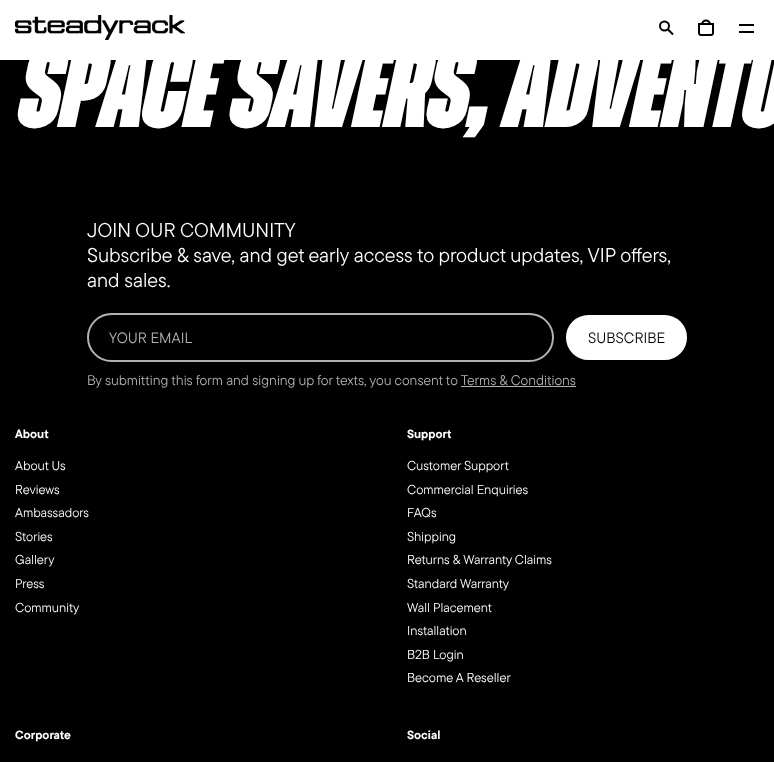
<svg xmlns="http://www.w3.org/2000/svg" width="774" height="762">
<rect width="100%" height="100%" fill="#000"/>
<rect width="774" height="60" fill="#fff"/>
<image x="15" y="15" width="170" height="25" href="media/1.png"/>
<circle cx="664.5" cy="26" r="4.5" fill="none" stroke="#000" stroke-width="2"/>
<path d="M668 29.5l5 5" fill="none" stroke="#000" stroke-width="2"/>
<image x="698" y="19" width="16" height="17" href="media/2.png"/>
<rect x="739" y="24" width="15" height="2" fill="#000"/>
<rect x="739" y="31" width="15" height="2" fill="#000"/>
<text x="20" y="127" style="font-family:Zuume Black;font-size:114.5px;font-weight:900;font-style:italic;fill:#fff">Space Savers, Adventu</text>
<text x="87" y="237" style="font-family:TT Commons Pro;font-size:20px;fill:#fff">JOIN OUR COMMUNITY</text>
<text x="87" y="262" style="font-family:TT Commons Pro;font-size:20px;fill:#fff">Subscribe &amp; save, and get early access to product updates, VIP offers,</text>
<text x="87" y="287" style="font-family:TT Commons Pro;font-size:20px;fill:#fff">and sales.</text>
<rect x="88" y="314" width="465" height="47" rx="23.5" fill="none" stroke="#b2b2b2" stroke-width="2"/>
<text x="109" y="343" style="font-family:TT Commons Pro;font-size:15px;fill:#b2b2b2">YOUR EMAIL</text>
<rect x="567" y="316" width="119" height="43" rx="21.5" fill="#fff" stroke="#fff" stroke-width="2"/>
<text x="588" y="343" style="font-family:TT Commons Pro;font-size:15px;fill:#000">SUBSCRIBE</text>
<text x="87" y="385" style="font-family:TT Commons Pro;font-size:14px;fill:#b2b2b2">By submitting this form and signing up for texts, you consent to Terms &amp; Conditions</text>
<rect x="461" y="386" width="115" height="1" fill="#b2b2b2"/>
<text x="15" y="438" style="font-family:TT Commons Pro;font-size:12px;font-weight:bold;fill:#fff">About</text>
<text x="15" y="470" style="font-family:TT Commons Pro;font-size:13px;fill:#fff">About Us</text>
<text x="15" y="494" style="font-family:TT Commons Pro;font-size:13px;fill:#fff">Reviews</text>
<text x="15" y="517" style="font-family:TT Commons Pro;font-size:13px;fill:#fff">Ambassadors</text>
<text x="15" y="541" style="font-family:TT Commons Pro;font-size:13px;fill:#fff">Stories</text>
<text x="15" y="564" style="font-family:TT Commons Pro;font-size:13px;fill:#fff">Gallery</text>
<text x="15" y="588" style="font-family:TT Commons Pro;font-size:13px;fill:#fff">Press</text>
<text x="15" y="612" style="font-family:TT Commons Pro;font-size:13px;fill:#fff">Community</text>
<text x="407" y="438" style="font-family:TT Commons Pro;font-size:12px;font-weight:bold;fill:#fff">Support</text>
<text x="407" y="470" style="font-family:TT Commons Pro;font-size:13px;fill:#fff">Customer Support</text>
<text x="407" y="494" style="font-family:TT Commons Pro;font-size:13px;fill:#fff">Commercial Enquiries</text>
<text x="407" y="517" style="font-family:TT Commons Pro;font-size:13px;fill:#fff">FAQs</text>
<text x="407" y="541" style="font-family:TT Commons Pro;font-size:13px;fill:#fff">Shipping</text>
<text x="407" y="564" style="font-family:TT Commons Pro;font-size:13px;fill:#fff">Returns &amp; Warranty Claims</text>
<text x="407" y="588" style="font-family:TT Commons Pro;font-size:13px;fill:#fff">Standard Warranty</text>
<text x="407" y="612" style="font-family:TT Commons Pro;font-size:13px;fill:#fff">Wall Placement</text>
<text x="407" y="635" style="font-family:TT Commons Pro;font-size:13px;fill:#fff">Installation</text>
<text x="407" y="659" style="font-family:TT Commons Pro;font-size:13px;fill:#fff">B2B Login</text>
<text x="407" y="682" style="font-family:TT Commons Pro;font-size:13px;fill:#fff">Become A Reseller</text>
<text x="15" y="739" style="font-family:TT Commons Pro;font-size:12px;font-weight:bold;fill:#fff">Corporate</text>
<text x="407" y="739" style="font-family:TT Commons Pro;font-size:12px;font-weight:bold;fill:#fff">Social</text>
</svg>
